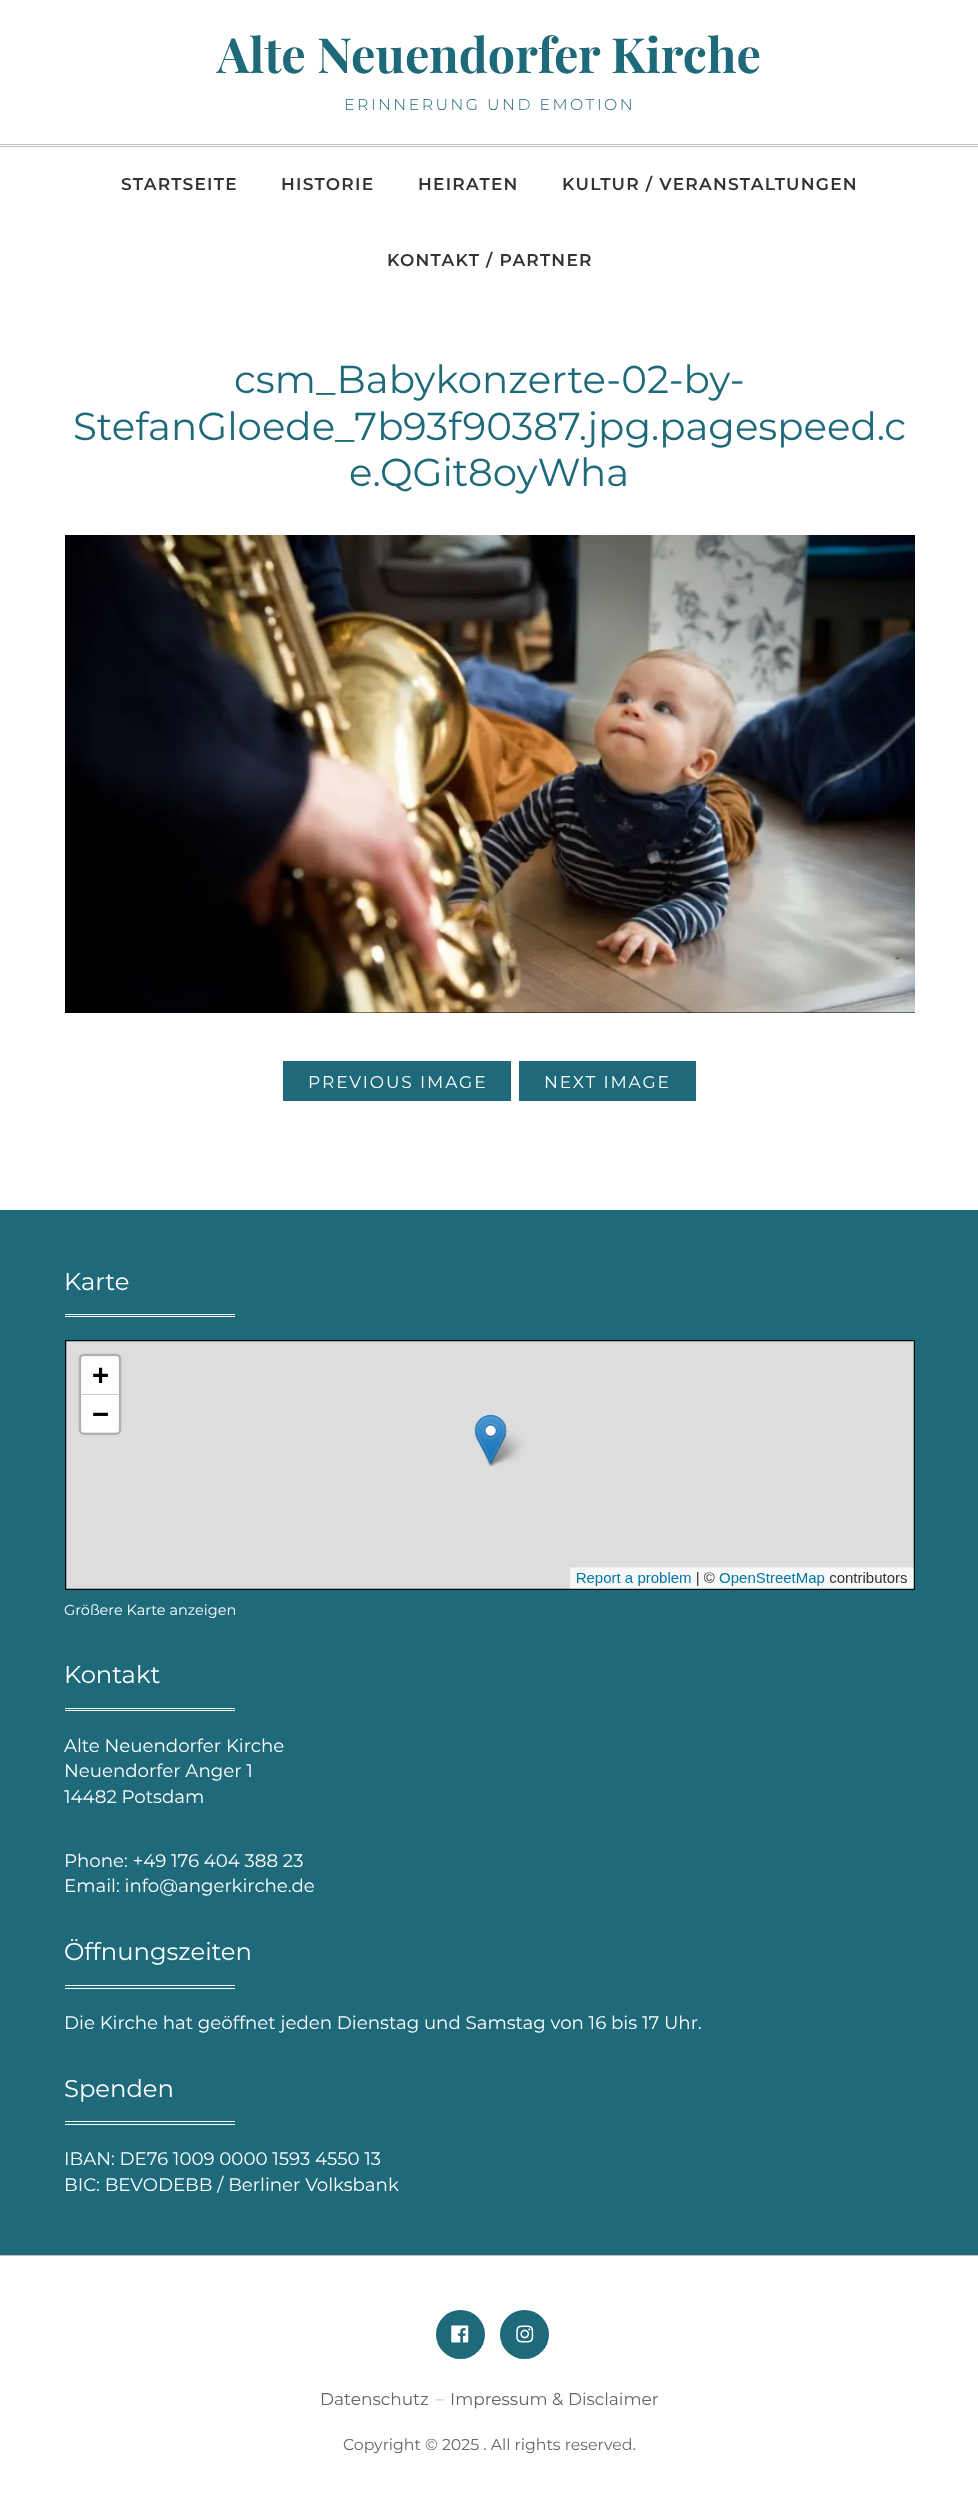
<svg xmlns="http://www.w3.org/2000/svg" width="978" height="2515">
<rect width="100%" height="100%" fill="#fff"/>
<text x="217" y="73" style="font-family:Playfair Display;font-size:48.5px;font-weight:bold;fill:#1e6a7b">Alte Neuendorfer Kirche</text>
<text x="344" y="110" style="font-family:Montserrat;font-size:15.75px;font-weight:300;letter-spacing:2.5px;fill:#1e6a7b">ERINNERUNG UND EMOTION</text>
<rect y="144" width="978" height="1" fill="#c1c1c1"/>
<rect y="146" width="978" height="1" fill="#c1c1c1"/>
<text x="121" y="190" style="font-family:Montserrat;font-size:17px;font-weight:600;letter-spacing:1.25px;fill:#333">STARTSEITE</text>
<text x="281" y="190" style="font-family:Montserrat;font-size:17px;font-weight:600;letter-spacing:1.25px;fill:#333">HISTORIE</text>
<text x="418" y="190" style="font-family:Montserrat;font-size:17px;font-weight:600;letter-spacing:1.25px;fill:#333">HEIRATEN</text>
<text x="562" y="190" style="font-family:Montserrat;font-size:17px;font-weight:600;letter-spacing:1.25px;fill:#333">KULTUR / VERANSTALTUNGEN</text>
<text x="387" y="266" style="font-family:Montserrat;font-size:17px;font-weight:600;letter-spacing:1.25px;fill:#333">KONTAKT / PARTNER</text>
<text x="234" y="393" style="font-family:Montserrat;font-size:38.8px;fill:#1e6a7b">csm_Babykonzerte-02-by-</text>
<text x="73" y="440" style="font-family:Montserrat;font-size:38.8px;fill:#1e6a7b">StefanGloede_7b93f90387.jpg.pagespeed.c</text>
<text x="349" y="486" style="font-family:Montserrat;font-size:38.8px;fill:#1e6a7b">e.QGit8oyWha</text>
<rect x="65" y="1012" width="850" height="1" fill="#000"/>
<image x="65" y="535" width="850" height="478" href="media/1.png"/>
<rect x="283" y="1061" width="228" height="40" fill="#1e6a7b"/>
<text x="308" y="1088" style="font-family:Montserrat;font-size:17px;letter-spacing:1.9px;fill:#fff">PREVIOUS IMAGE</text>
<rect x="519" y="1061" width="177" height="40" fill="#1e6a7b"/>
<text x="544" y="1088" style="font-family:Montserrat;font-size:17px;letter-spacing:1.9px;fill:#fff">NEXT IMAGE</text>
<rect y="1210" width="978" height="1045" fill="#1e6a7b"/>
<text x="64" y="1290" style="font-family:Montserrat;font-size:24.25px;fill:#fff">Karte</text>
<rect x="65" y="1314" width="170" height="1" fill="#fff"/>
<rect x="65" y="1316" width="170" height="1" fill="#fff"/>
<rect x="65.5" y="1340.5" width="849" height="249" fill="none" stroke="#000"/>
<image x="66" y="1341" width="848" height="248" href="media/2.png"/>
<text x="64" y="1615" style="font-family:Montserrat;font-size:14.5px;fill:#fff">Größere Karte anzeigen</text>
<text x="64" y="1683" style="font-family:Montserrat;font-size:24.25px;fill:#fff">Kontakt</text>
<rect x="65" y="1708" width="170" height="1" fill="#fff"/>
<rect x="65" y="1710" width="170" height="1" fill="#fff"/>
<text x="64" y="1752" style="font-family:Montserrat;font-size:18.2px;fill:#fff">Alte Neuendorfer Kirche</text>
<text x="64" y="1777" style="font-family:Montserrat;font-size:18.2px;fill:#fff">Neuendorfer Anger 1</text>
<text x="64" y="1803" style="font-family:Montserrat;font-size:18.2px;fill:#fff">14482 Potsdam</text>
<text x="64" y="1867" style="font-family:Montserrat;font-size:18.2px;fill:#fff">Phone: +49 176 404 388 23</text>
<text x="64" y="1892" style="font-family:Montserrat;font-size:18.2px;fill:#fff">Email: info@angerkirche.de</text>
<text x="64" y="1960" style="font-family:Montserrat;font-size:24.25px;fill:#fff">Öffnungszeiten</text>
<rect x="65" y="1985" width="170" height="1" fill="#fff"/>
<rect x="65" y="1988" width="170" height="1" fill="#fff"/>
<text x="64" y="2029" style="font-family:Montserrat;font-size:18.2px;fill:#fff">Die Kirche hat geöffnet jeden Dienstag und Samstag von 16 bis 17 Uhr.</text>
<text x="64" y="2097" style="font-family:Montserrat;font-size:24.25px;fill:#fff">Spenden</text>
<rect x="65" y="2121" width="170" height="1" fill="#fff"/>
<rect x="65" y="2124" width="170" height="1" fill="#fff"/>
<text x="64" y="2165" style="font-family:Montserrat;font-size:18.2px;fill:#fff">IBAN: DE76 1009 0000 1593 4550 13</text>
<text x="64" y="2191" style="font-family:Montserrat;font-size:18.2px;fill:#fff">BIC: BEVODEBB / Berliner Volksbank</text>
<rect y="2255" width="978" height="1" fill="#c1c1c1"/>
<circle cx="460.5" cy="2334.5" r="24.5" fill="#1e6a7b"/>
<image x="451" y="2325" width="18" height="18" href="media/3.png"/>
<circle cx="524.5" cy="2334.5" r="24.5" fill="#1e6a7b"/>
<image x="516" y="2325" width="18" height="18" href="media/4.png"/>
<text x="320" y="2405" style="font-family:Montserrat;font-size:17px;fill:#656565">Datenschutz</text>
<text x="436" y="2404" style="font-family:Montserrat;font-size:15px;fill:#b2b2b2">–</text>
<text x="450" y="2405" style="font-family:Montserrat;font-size:17px;fill:#656565">Impressum &amp; Disclaimer</text>
<text x="343" y="2450" style="font-family:Montserrat;font-size:15.75px;fill:#656565">Copyright © 2025 . All rights reserved.</text>
</svg>
